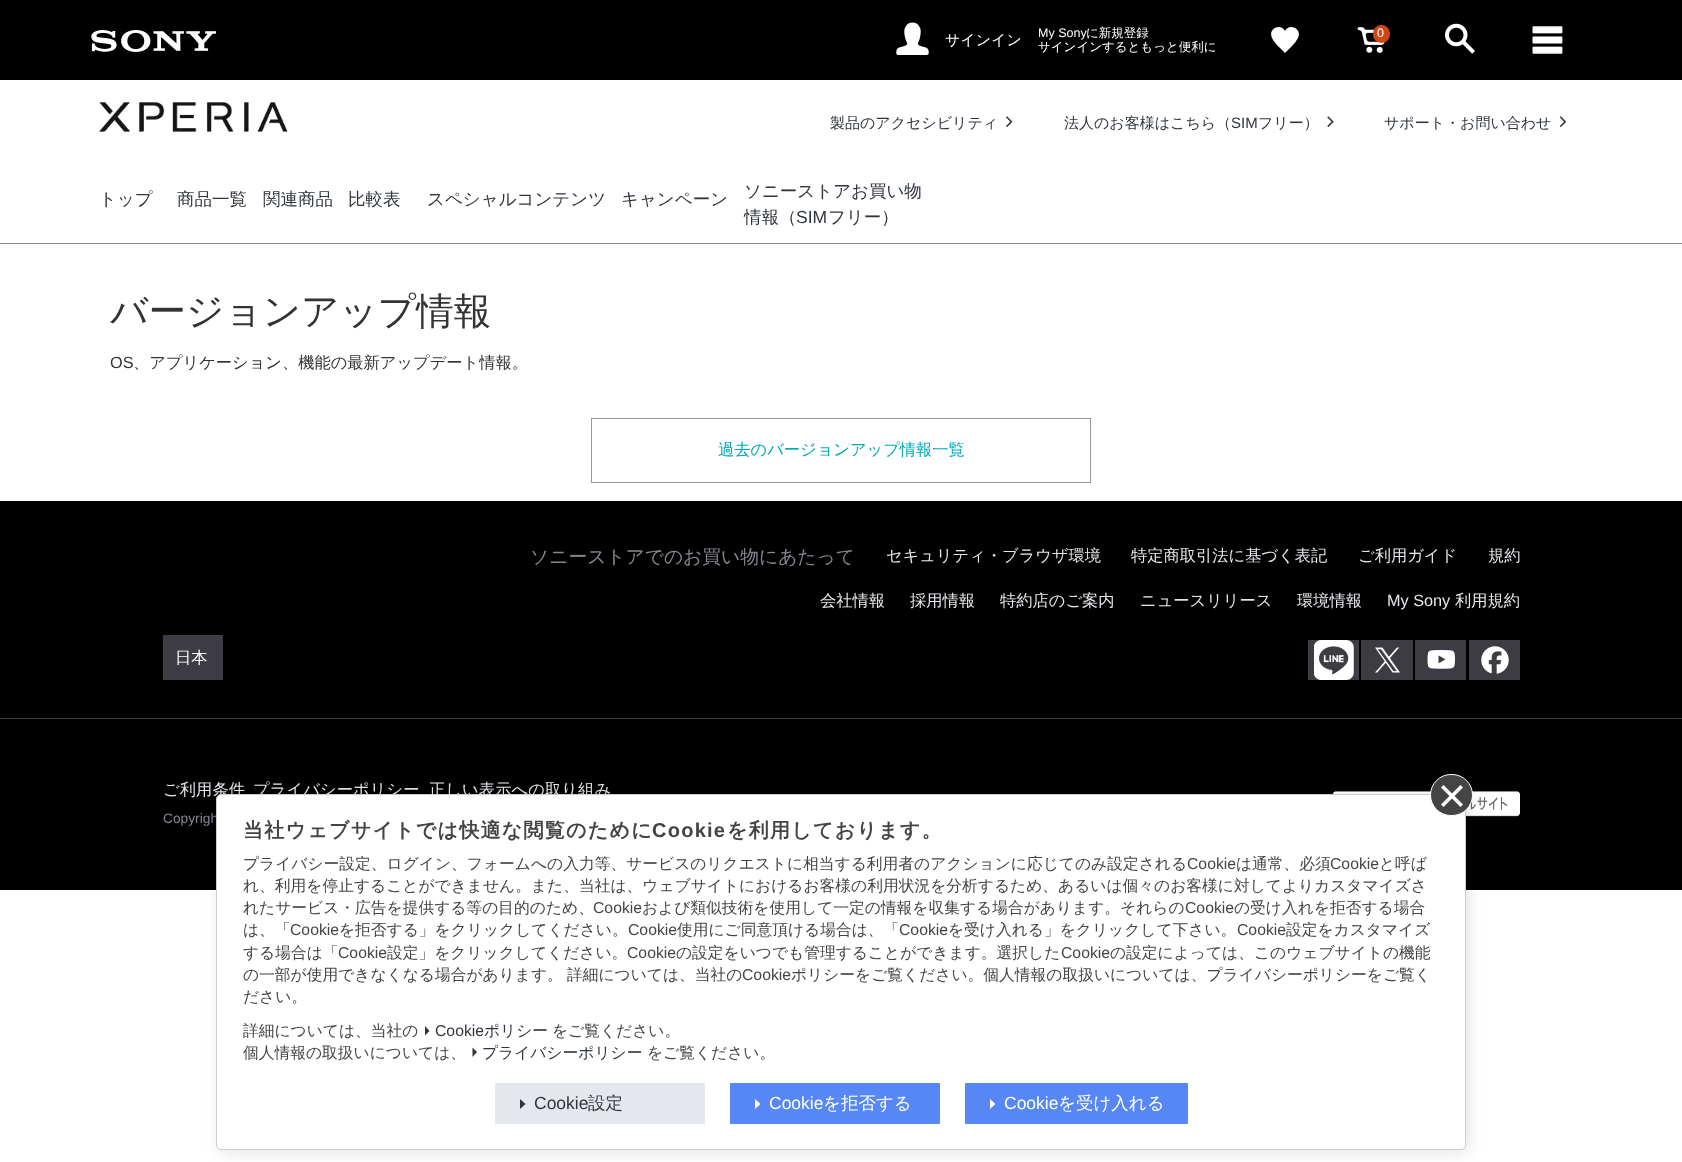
<svg xmlns="http://www.w3.org/2000/svg" width="1682" height="1162">
<rect width="100%" height="100%" fill="#fff"/>
<rect width="1682" height="80" fill="#000"/>
<image x="91" y="30" width="125" height="22" href="media/1.png"/>
<image x="896" y="22" width="33" height="33" href="media/2.png"/>
<text x="945" y="45" style="font-family:WenQuanYi Zen Hei;font-size:15px;font-weight:500;fill:#fff">サインイン</text>
<text x="1038" y="37" style="font-family:Liberation Sans;font-size:12.5px;fill:#fff">My Sony</text>
<text x="1086" y="37" style="font-family:WenQuanYi Zen Hei;font-size:12.5px;font-weight:500;fill:#fff">に新規登録</text>
<text x="1038" y="51" style="font-family:WenQuanYi Zen Hei;font-size:12.5px;font-weight:500;fill:#fff">サインインするともっと便利に</text>
<path d="M1285 53c-4-4.5-10.5-9.5-13-15c-4.5-10 9.5-15 13-7c3.5-8 17.5-3 13 7c-3 6-8.5 10.5-13 15z" fill="#fff"/>
<image x="1357" y="27" width="28" height="26" href="media/3.png"/>
<rect x="1373" y="25" width="17" height="18" rx="8.5" fill="#d24615"/>
<text x="1377" y="37" style="font-family:Liberation Sans;font-size:12.5px;fill:#fff">0</text>
<image x="1445" y="23" width="30" height="31" href="media/4.png"/>
<image x="1532" y="26" width="31" height="28" href="media/5.png"/>
<rect y="243" width="1682" height="1" fill="#8c8c8c"/>
<image x="99" y="102" width="189" height="30" href="media/6.png"/>
<text x="830" y="128" style="font-family:WenQuanYi Zen Hei;font-size:15px;font-weight:500;fill:#2f353d">製品のアクセシビリティ</text>
<image x="1006" y="116" width="7" height="12" href="media/7.png"/>
<text x="1064" y="128" style="font-family:WenQuanYi Zen Hei;font-size:15px;font-weight:500;fill:#2f353d">法人のお客様はこちら（</text>
<text x="1231" y="128" style="font-family:Liberation Sans;font-size:15px;fill:#2f353d">SIM</text>
<text x="1258" y="128" style="font-family:WenQuanYi Zen Hei;font-size:15px;font-weight:500;fill:#2f353d">フリー）</text>
<image x="1327" y="116" width="7" height="12" href="media/8.png"/>
<text x="1384" y="128" style="font-family:WenQuanYi Zen Hei;font-size:15px;font-weight:500;fill:#2f353d">サポート・お問い合わせ</text>
<image x="1559" y="116" width="8" height="12" href="media/9.png"/>
<text x="99" y="205" style="font-family:WenQuanYi Zen Hei;font-size:17.5px;font-weight:500;fill:#2f353d">トップ</text>
<text x="177" y="205" style="font-family:WenQuanYi Zen Hei;font-size:17.5px;font-weight:500;fill:#2f353d">商品一覧</text>
<text x="263" y="205" style="font-family:WenQuanYi Zen Hei;font-size:17.5px;font-weight:500;fill:#2f353d">関連商品</text>
<text x="348" y="205" style="font-family:WenQuanYi Zen Hei;font-size:17.5px;font-weight:500;fill:#2f353d">比較表</text>
<text x="427" y="205" style="font-family:WenQuanYi Zen Hei;font-size:17.5px;font-weight:500;fill:#2f353d">スペシャルコンテンツ</text>
<text x="621" y="205" style="font-family:WenQuanYi Zen Hei;font-size:17.5px;font-weight:500;fill:#2f353d">キャンペーン</text>
<text x="744" y="197" style="font-family:WenQuanYi Zen Hei;font-size:17.5px;font-weight:500;fill:#2f353d">ソニーストアお買い物</text>
<text x="744" y="223" style="font-family:WenQuanYi Zen Hei;font-size:17.5px;font-weight:500;fill:#2f353d">情報（</text>
<text x="796" y="223" style="font-family:Liberation Sans;font-size:17.5px;fill:#2f353d">SIM</text>
<text x="828" y="223" style="font-family:WenQuanYi Zen Hei;font-size:17.5px;font-weight:500;fill:#2f353d">フリー）</text>
<text x="110" y="324" style="font-family:WenQuanYi Zen Hei;font-size:37.5px;font-weight:500;fill:#333">バージョンアップ情報</text>
<text x="110" y="368" style="font-family:Liberation Sans;font-size:16.25px;fill:#333">OS</text>
<text x="133" y="368" style="font-family:WenQuanYi Zen Hei;font-size:16.25px;font-weight:500;fill:#333">、アプリケーション、機能の最新アップデート情報。</text>
<rect x="591.5" y="418.5" width="499" height="64" fill="none" stroke="#999"/>
<text x="718" y="455" style="font-family:WenQuanYi Zen Hei;font-size:16.25px;font-weight:500;fill:#00a8b5">過去のバージョンアップ情報一覧</text>
<rect y="501" width="1682" height="389" fill="#000"/>
<text x="530" y="563" style="font-family:WenQuanYi Zen Hei;font-size:18.75px;font-weight:500;fill:#878792">ソニーストアでのお買い物にあたって</text>
<text x="886" y="561" style="font-family:WenQuanYi Zen Hei;font-size:16.25px;font-weight:500;fill:#e4e7eb">セキュリティ・ブラウザ環境</text>
<text x="1131" y="561" style="font-family:WenQuanYi Zen Hei;font-size:16.25px;font-weight:500;fill:#e4e7eb">特定商取引法に基づく表記</text>
<text x="1358" y="561" style="font-family:WenQuanYi Zen Hei;font-size:16.25px;font-weight:500;fill:#e4e7eb">ご利用ガイド</text>
<text x="1488" y="561" style="font-family:WenQuanYi Zen Hei;font-size:16.25px;font-weight:500;fill:#e4e7eb">規約</text>
<text x="820" y="606" style="font-family:WenQuanYi Zen Hei;font-size:16.25px;font-weight:500;fill:#e4e7eb">会社情報</text>
<text x="910" y="606" style="font-family:WenQuanYi Zen Hei;font-size:16.25px;font-weight:500;fill:#e4e7eb">採用情報</text>
<text x="1000" y="606" style="font-family:WenQuanYi Zen Hei;font-size:16.25px;font-weight:500;fill:#e4e7eb">特約店のご案内</text>
<text x="1140" y="606" style="font-family:WenQuanYi Zen Hei;font-size:16.25px;font-weight:500;fill:#e4e7eb">ニュースリリース</text>
<text x="1297" y="606" style="font-family:WenQuanYi Zen Hei;font-size:16.25px;font-weight:500;fill:#e4e7eb">環境情報</text>
<text x="1387" y="606" style="font-family:Liberation Sans;font-size:16.25px;fill:#e4e7eb">My Sony</text>
<text x="1455" y="606" style="font-family:WenQuanYi Zen Hei;font-size:16.25px;font-weight:500;fill:#e4e7eb">利用規約</text>
<rect x="1308" y="640" width="51" height="40" fill="#3c3c42"/>
<image x="1314" y="640" width="40" height="40" href="media/10.png"/>
<rect x="1361" y="640" width="52" height="40" fill="#3c3c42"/>
<image x="1375" y="647" width="25" height="26" href="media/11.png"/>
<rect x="1415" y="640" width="51" height="40" fill="#3c3c42"/>
<image x="1427" y="650" width="28" height="19" href="media/12.png"/>
<rect x="1469" y="640" width="51" height="40" fill="#3c3c42"/>
<image x="1481" y="646" width="28" height="28" href="media/13.png"/>
<rect x="163" y="635" width="60" height="45" fill="#3c3c42"/>
<text x="175" y="663" style="font-family:WenQuanYi Zen Hei;font-size:16.25px;font-weight:500;fill:#fff">日本</text>
<rect y="718" width="1682" height="1" fill="#3c3c42"/>
<text x="163" y="795" style="font-family:WenQuanYi Zen Hei;font-size:16.25px;font-weight:500;letter-spacing:0.1px;fill:#e4e7eb">ご利用条件</text>
<text x="253" y="795" style="font-family:WenQuanYi Zen Hei;font-size:16.25px;font-weight:500;letter-spacing:0.1px;fill:#e4e7eb">プライバシーポリシー</text>
<text x="429" y="795" style="font-family:WenQuanYi Zen Hei;font-size:16.25px;font-weight:500;letter-spacing:0.1px;fill:#e4e7eb">正しい表示への取り組み</text>
<text x="163" y="823" style="font-family:Liberation Sans;font-size:13.75px;fill:#878792">Copyrigh</text>
<image x="1333" y="791" width="187" height="26" href="media/14.png"/>
<rect x="219" y="796" width="1250" height="357" rx="5" fill="#0000001a" filter="blur(7.5px)"/>
<rect x="216.5" y="794.5" width="1249" height="355" rx="4.5" fill="#fff" stroke="#ccc"/>
<rect x="1430.5" y="774.5" width="42" height="41" rx="20.5" fill="#444" stroke="#fff"/>
<path d="M1441 804.5l19.5-19.5l2.5 2.5l-19.5 19.5z" fill="#fff"/>
<path d="M1443.5 785l19.5 19.5l-2.5 2.5l-19.5-19.5z" fill="#fff"/>
<text x="243" y="837" style="font-family:WenQuanYi Zen Hei;font-size:20px;font-weight:bold;letter-spacing:1.25px;fill:#444">当社ウェブサイトでは快適な閲覧のために</text>
<text x="652" y="837" style="font-family:Liberation Sans;font-size:20px;font-weight:bold;letter-spacing:1.25px;fill:#444">Cookie</text>
<text x="727" y="837" style="font-family:WenQuanYi Zen Hei;font-size:20px;font-weight:bold;letter-spacing:1.25px;fill:#444">を利用しております。</text>
<text x="243" y="869" style="font-family:WenQuanYi Zen Hei;font-size:15.75px;font-weight:500;fill:#444">プライバシー設定、ログイン、フォームへの入力等、サービスのリクエストに相当する利用者のアクションに応じてのみ設定される</text>
<text x="1187" y="869" style="font-family:Liberation Sans;font-size:15.75px;fill:#444">Cookie</text>
<text x="1236" y="869" style="font-family:WenQuanYi Zen Hei;font-size:15.75px;font-weight:500;fill:#444">は通常、必須</text>
<text x="1330" y="869" style="font-family:Liberation Sans;font-size:15.75px;fill:#444">Cookie</text>
<text x="1379" y="869" style="font-family:WenQuanYi Zen Hei;font-size:15.75px;font-weight:500;fill:#444">と呼ば</text>
<text x="243" y="891" style="font-family:WenQuanYi Zen Hei;font-size:15.75px;font-weight:500;fill:#444">れ、利用を停止することができません。また、当社は、ウェブサイトにおけるお客様の利用状況を分析するため、あるいは個々のお客様に対してよりカスタマイズさ</text>
<text x="243" y="913" style="font-family:WenQuanYi Zen Hei;font-size:15.75px;font-weight:500;fill:#444">れたサービス・広告を提供する等の目的のため、</text>
<text x="593" y="913" style="font-family:Liberation Sans;font-size:15.75px;fill:#444">Cookie</text>
<text x="642" y="913" style="font-family:WenQuanYi Zen Hei;font-size:15.75px;font-weight:500;fill:#444">および類似技術を使用して一定の情報を収集する場合があります。それらの</text>
<text x="1185" y="913" style="font-family:Liberation Sans;font-size:15.75px;fill:#444">Cookie</text>
<text x="1234" y="913" style="font-family:WenQuanYi Zen Hei;font-size:15.75px;font-weight:500;fill:#444">の受け入れを拒否する場合</text>
<text x="243" y="935" style="font-family:WenQuanYi Zen Hei;font-size:15.75px;font-weight:500;fill:#444">は、「</text>
<text x="290" y="935" style="font-family:Liberation Sans;font-size:15.75px;fill:#444">Cookie</text>
<text x="339" y="935" style="font-family:WenQuanYi Zen Hei;font-size:15.75px;font-weight:500;fill:#444">を拒否する」をクリックしてください。</text>
<text x="628" y="935" style="font-family:Liberation Sans;font-size:15.75px;fill:#444">Cookie</text>
<text x="677" y="935" style="font-family:WenQuanYi Zen Hei;font-size:15.75px;font-weight:500;fill:#444">使用にご同意頂ける場合は、「</text>
<text x="899" y="935" style="font-family:Liberation Sans;font-size:15.75px;fill:#444">Cookie</text>
<text x="948" y="935" style="font-family:WenQuanYi Zen Hei;font-size:15.75px;font-weight:500;fill:#444">を受け入れる」をクリックして下さい。</text>
<text x="1237" y="935" style="font-family:Liberation Sans;font-size:15.75px;fill:#444">Cookie</text>
<text x="1286" y="935" style="font-family:WenQuanYi Zen Hei;font-size:15.75px;font-weight:500;fill:#444">設定をカスタマイズ</text>
<text x="243" y="958" style="font-family:WenQuanYi Zen Hei;font-size:15.75px;font-weight:500;fill:#444">する場合は「</text>
<text x="338" y="958" style="font-family:Liberation Sans;font-size:15.75px;fill:#444">Cookie</text>
<text x="387" y="958" style="font-family:WenQuanYi Zen Hei;font-size:15.75px;font-weight:500;fill:#444">設定」をクリックしてください。</text>
<text x="627" y="958" style="font-family:Liberation Sans;font-size:15.75px;fill:#444">Cookie</text>
<text x="676" y="958" style="font-family:WenQuanYi Zen Hei;font-size:15.75px;font-weight:500;fill:#444">の設定をいつでも管理することができます。選択した</text>
<text x="1061" y="958" style="font-family:Liberation Sans;font-size:15.75px;fill:#444">Cookie</text>
<text x="1110" y="958" style="font-family:WenQuanYi Zen Hei;font-size:15.75px;font-weight:500;fill:#444">の設定によっては、このウェブサイトの機能</text>
<text x="243" y="980" style="font-family:WenQuanYi Zen Hei;font-size:15.75px;font-weight:500;fill:#444">の一部が使用できなくなる場合があります。</text>
<text x="567" y="980" style="font-family:WenQuanYi Zen Hei;font-size:15.75px;font-weight:500;fill:#444">詳細については、当社の</text>
<text x="742" y="980" style="font-family:Liberation Sans;font-size:15.75px;fill:#444">Cookie</text>
<text x="791" y="980" style="font-family:WenQuanYi Zen Hei;font-size:15.75px;font-weight:500;fill:#444">ポリシーをご覧ください。個人情報の取扱いについては、プライバシーポリシーをご覧く</text>
<text x="243" y="1002" style="font-family:WenQuanYi Zen Hei;font-size:15.75px;font-weight:500;fill:#444">ださい。</text>
<text x="243" y="1036" style="font-family:WenQuanYi Zen Hei;font-size:15.75px;font-weight:500;fill:#444">詳細については、当社の</text>
<path d="M425 1026l4.5 5l-4.5 4.5z" fill="#2f353d"/>
<text x="435" y="1036" style="font-family:Liberation Sans;font-size:15.75px;fill:#2f353d">Cookie</text>
<text x="484" y="1036" style="font-family:WenQuanYi Zen Hei;font-size:15.75px;font-weight:500;fill:#2f353d">ポリシー</text>
<text x="552" y="1036" style="font-family:WenQuanYi Zen Hei;font-size:15.75px;font-weight:500;fill:#444">をご覧ください。</text>
<text x="243" y="1058" style="font-family:WenQuanYi Zen Hei;font-size:15.75px;font-weight:500;fill:#444">個人情報の取扱いについては、</text>
<path d="M472.5 1047.5l4.5 4.5l-4.5 5z" fill="#2f353d"/>
<text x="482" y="1058" style="font-family:WenQuanYi Zen Hei;font-size:15.75px;font-weight:500;fill:#2f353d">プライバシーポリシー</text>
<text x="647" y="1058" style="font-family:WenQuanYi Zen Hei;font-size:15.75px;font-weight:500;fill:#444">をご覧ください。</text>
<rect x="495" y="1083" width="210" height="41" rx="1" fill="#e4e7ec"/>
<path d="M520 1099l5.5 5l-5.5 5z" fill="#2f353d"/>
<text x="534" y="1109" style="font-family:Liberation Sans;font-size:17.5px;fill:#2f353d">Cookie</text>
<text x="588" y="1109" style="font-family:WenQuanYi Zen Hei;font-size:17.5px;font-weight:500;fill:#2f353d">設定</text>
<rect x="730" y="1083" width="210" height="41" rx="1" fill="#5787f4"/>
<path d="M755 1099l5.5 5l-5.5 5z" fill="#fff"/>
<text x="769" y="1109" style="font-family:Liberation Sans;font-size:17.5px;fill:#fff">Cookie</text>
<text x="823" y="1109" style="font-family:WenQuanYi Zen Hei;font-size:17.5px;font-weight:500;fill:#fff">を拒否する</text>
<rect x="965" y="1083" width="223" height="41" rx="1" fill="#5787f4"/>
<path d="M990 1099l5.5 5l-5.5 5z" fill="#fff"/>
<text x="1004" y="1109" style="font-family:Liberation Sans;font-size:17.5px;fill:#fff">Cookie</text>
<text x="1058" y="1109" style="font-family:WenQuanYi Zen Hei;font-size:17.5px;font-weight:500;fill:#fff">を受け入れる</text>
</svg>
